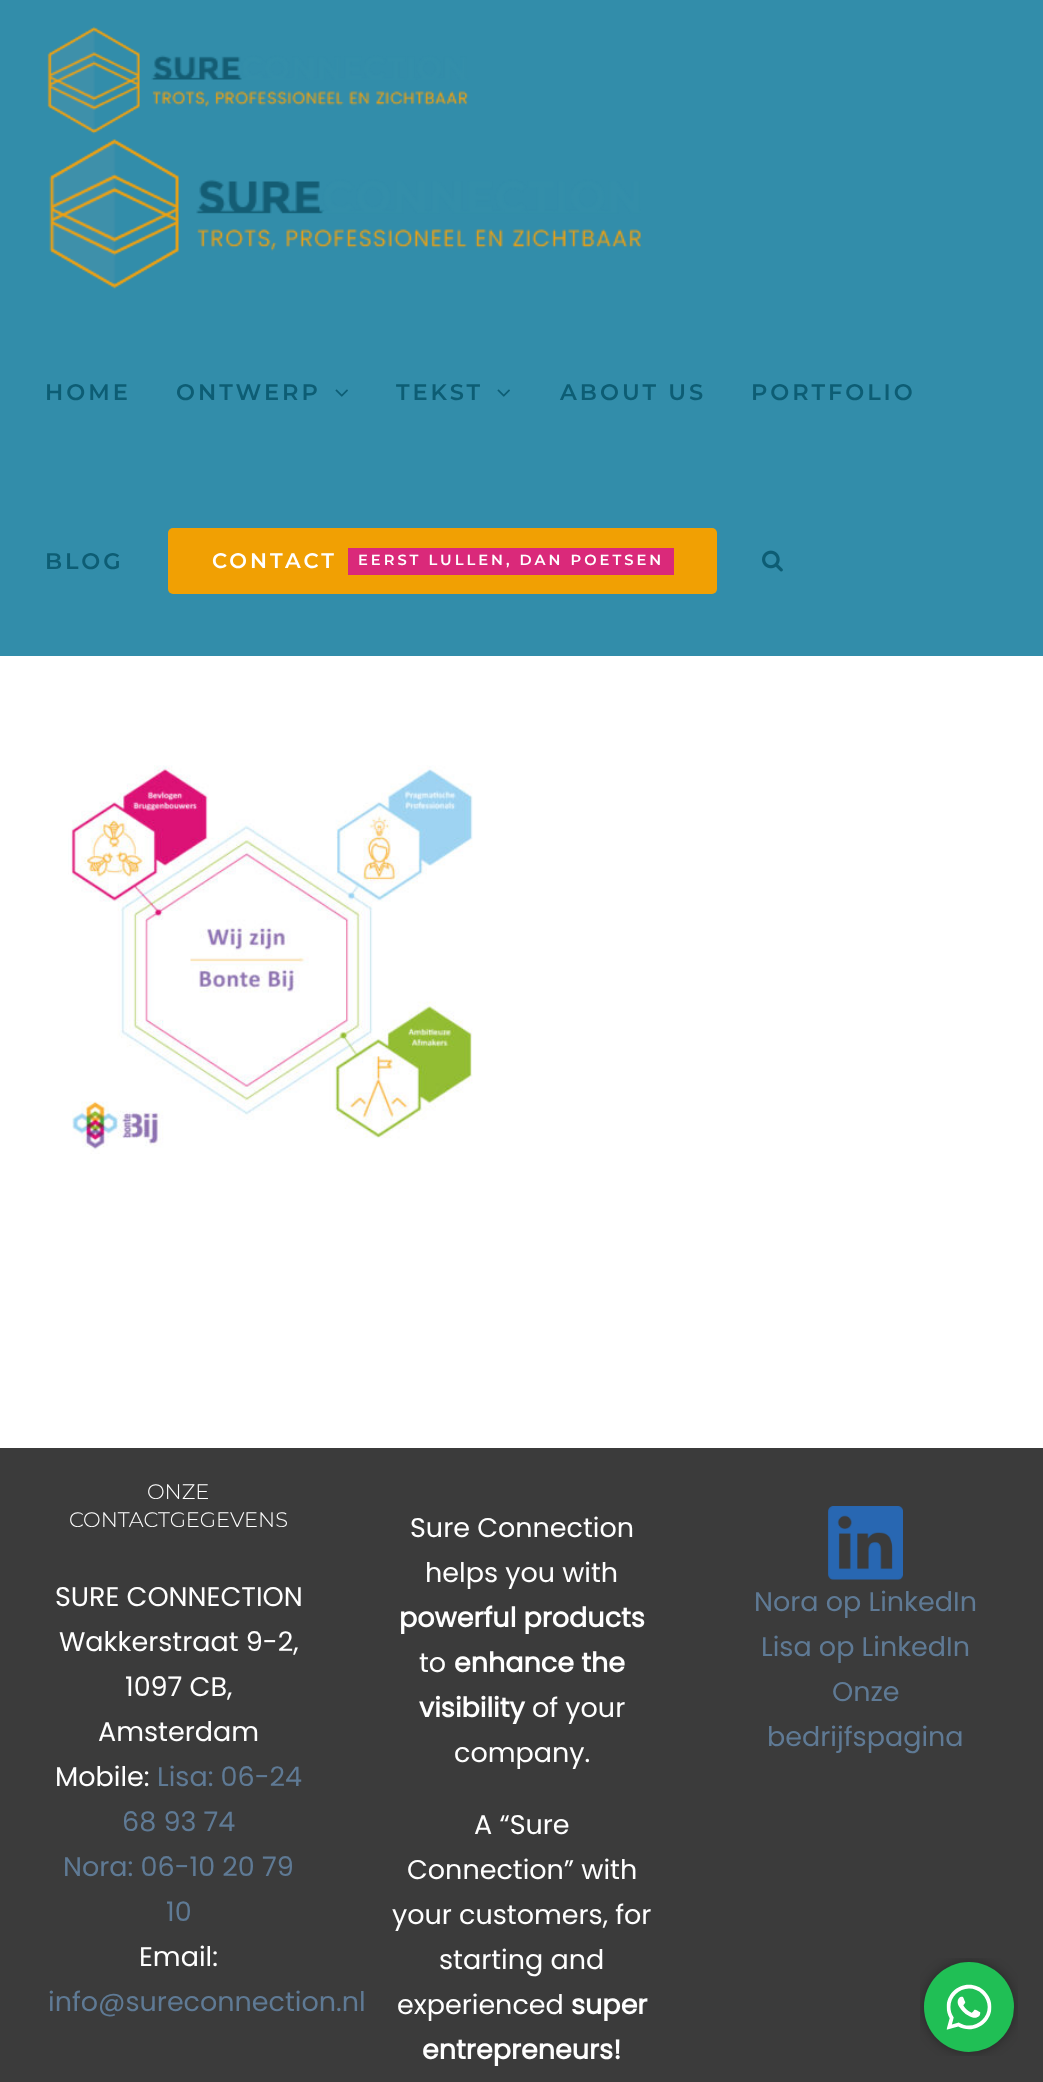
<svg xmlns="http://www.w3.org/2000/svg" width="1043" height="2082">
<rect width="100%" height="100%" fill="#fff"/>
<rect width="1043" height="656" fill="#328daa"/>
<image x="47" y="26" width="422" height="108" href="media/1.png"/>
<image x="49" y="139" width="592" height="150" href="media/2.png"/>
<text x="45" y="400" style="font-family:Montserrat;font-size:22.5px;font-weight:600;letter-spacing:3px;fill:#0d5d74">HOME</text>
<text x="176" y="400" style="font-family:Montserrat;font-size:22.5px;font-weight:600;letter-spacing:3px;fill:#0d5d74">ONTWERP</text>
<image x="335" y="389" width="13" height="8" href="media/3.png"/>
<text x="396" y="400" style="font-family:Montserrat;font-size:22.5px;font-weight:600;letter-spacing:3px;fill:#0d5d74">TEKST</text>
<image x="497" y="389" width="13" height="8" href="media/3.png"/>
<text x="560" y="400" style="font-family:Montserrat;font-size:22.5px;font-weight:600;letter-spacing:3px;fill:#0d5d74">ABOUT US</text>
<text x="751" y="400" style="font-family:Montserrat;font-size:22.5px;font-weight:600;letter-spacing:3px;fill:#0d5d74">PORTFOLIO</text>
<text x="45" y="569" style="font-family:Montserrat;font-size:22.5px;font-weight:600;letter-spacing:3px;fill:#0d5d74">BLOG</text>
<rect x="168" y="528" width="549" height="66" rx="5" fill="#f1a003"/>
<text x="212" y="568" style="font-family:Montserrat;font-size:21px;font-weight:600;letter-spacing:3px;fill:#fff">CONTACT</text>
<rect x="348" y="548" width="326" height="27" fill="#da297a"/>
<text x="358" y="565" style="font-family:Montserrat;font-size:14.7px;font-weight:600;letter-spacing:3px;fill:#fff">EERST LULLEN, DAN POETSEN</text>
<image x="762" y="550" width="21" height="22" href="media/4.png"/>
<image x="68" y="765" width="405" height="389" href="media/5.png"/>
<rect y="1448" width="1043" height="634" fill="#3b3b3b"/>
<text x="147" y="1499" style="font-family:Montserrat;font-size:21px;font-weight:300;fill:#fff">ONZE</text>
<text x="69" y="1527" style="font-family:Montserrat;font-size:21px;font-weight:300;fill:#fff">CONTACTGEGEVENS</text>
<text x="55" y="1606" style="font-family:Poppins;font-size:27px;fill:#fff">SURE CONNECTION</text>
<text x="59" y="1651" style="font-family:Poppins;font-size:27px;fill:#fff">Wakkerstraat 9-2,</text>
<text x="125" y="1696" style="font-family:Poppins;font-size:27px;fill:#fff">1097 CB,</text>
<text x="98" y="1741" style="font-family:Poppins;font-size:27px;fill:#fff">Amsterdam</text>
<text x="55" y="1786" style="font-family:Poppins;font-size:27px;fill:#fff">Mobile:</text>
<text x="157" y="1786" style="font-family:Poppins;font-size:27px;fill:#5f7a95">Lisa: 06-24</text>
<text x="122" y="1831" style="font-family:Poppins;font-size:27px;fill:#5f7a95">68 93 74</text>
<text x="63" y="1876" style="font-family:Poppins;font-size:27px;fill:#5f7a95">Nora: 06-10 20 79</text>
<text x="166" y="1921" style="font-family:Poppins;font-size:27px;fill:#5f7a95">10</text>
<text x="139" y="1966" style="font-family:Poppins;font-size:27px;fill:#fff">Email:</text>
<text x="48" y="2011" style="font-family:Poppins;font-size:27px;fill:#5f7a95">info@sureconnection.nl</text>
<text x="410" y="1537" style="font-family:Poppins;font-size:27px;fill:#fff">Sure Connection</text>
<text x="425" y="1582" style="font-family:Poppins;font-size:27px;fill:#fff">helps you with</text>
<text x="399" y="1627" style="font-family:Poppins;font-size:27px;font-weight:bold;fill:#fff">powerful products</text>
<text x="419" y="1672" style="font-family:Poppins;font-size:27px;fill:#fff">to</text>
<text x="454" y="1672" style="font-family:Poppins;font-size:27px;font-weight:bold;fill:#fff">enhance the</text>
<text x="419" y="1717" style="font-family:Poppins;font-size:27px;font-weight:bold;fill:#fff">visibility</text>
<text x="532" y="1717" style="font-family:Poppins;font-size:27px;fill:#fff">of your</text>
<text x="454" y="1762" style="font-family:Poppins;font-size:27px;fill:#fff">company.</text>
<text x="474" y="1834" style="font-family:Poppins;font-size:27px;fill:#fff">A “Sure</text>
<text x="407" y="1879" style="font-family:Poppins;font-size:27px;fill:#fff">Connection” with</text>
<text x="392" y="1924" style="font-family:Poppins;font-size:27px;fill:#fff">your customers, for</text>
<text x="439" y="1969" style="font-family:Poppins;font-size:27px;fill:#fff">starting and</text>
<text x="397" y="2014" style="font-family:Poppins;font-size:27px;fill:#fff">experienced</text>
<text x="571" y="2014" style="font-family:Poppins;font-size:27px;font-weight:bold;fill:#fff">super</text>
<text x="422" y="2059" style="font-family:Poppins;font-size:27px;font-weight:bold;fill:#fff">entrepreneurs!</text>
<image x="828" y="1506" width="75" height="74" href="media/6.png"/>
<text x="754" y="1611" style="font-family:Poppins;font-size:27px;fill:#5f7a95">Nora op LinkedIn</text>
<text x="761" y="1656" style="font-family:Poppins;font-size:27px;fill:#5f7a95">Lisa op LinkedIn</text>
<text x="832" y="1701" style="font-family:Poppins;font-size:27px;fill:#5f7a95">Onze</text>
<text x="767" y="1746" style="font-family:Poppins;font-size:27px;fill:#5f7a95">bedrijfspagina</text>
<image x="920" y="1958" width="98" height="98" href="media/7.png"/>
</svg>
